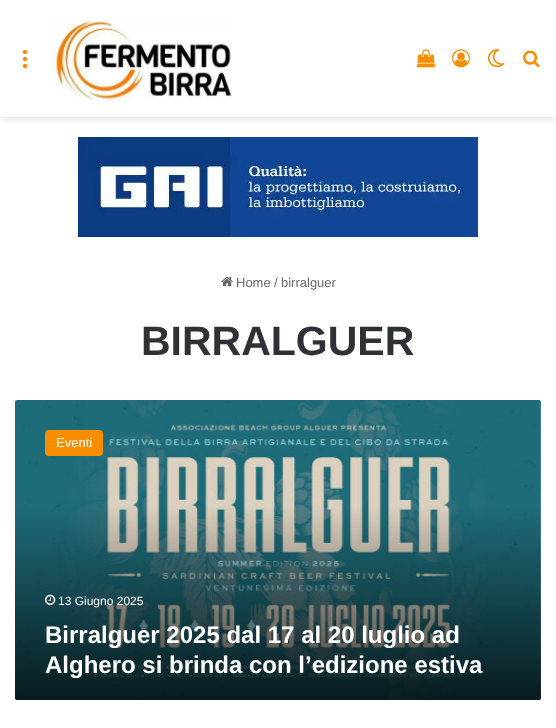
<svg xmlns="http://www.w3.org/2000/svg" width="556" height="728">
<defs>
<clipPath id="clip1"><rect x="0" y="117" width="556" height="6"/></clipPath>
<linearGradient id="g1" gradientUnits="userSpaceOnUse" x1="278" y1="505" x2="278" y2="700"><stop offset="0" stop-color="#000" stop-opacity="0"/><stop offset="1" stop-color="#000" stop-opacity="0.75"/></linearGradient>
</defs>
<rect width="100%" height="100%" fill="#fff"/>
<g clip-path="url(#clip1)">
<rect y="3" width="556" height="117" fill="#0000001a" filter="blur(3.5px)"/>
</g>
<image x="22" y="49" width="6" height="20" href="media/1.png"/>
<image x="50" y="21" width="182" height="82" href="media/2.png"/>
<image x="417" y="49" width="18" height="19" href="media/3.png"/>
<image x="452" y="49" width="18" height="19" href="media/4.png"/>
<image x="488" y="49" width="17" height="19" href="media/5.png"/>
<image x="523" y="50" width="17" height="18" href="media/6.png"/>
<image x="78" y="137" width="400" height="100" href="media/7.png"/>
<image x="221" y="276" width="12" height="11" href="media/8.png"/>
<text x="236" y="287" style="font-family:Liberation Sans;font-size:13px;fill:#686868">Home</text>
<text x="274" y="287" style="font-family:Liberation Sans;font-size:13px;fill:#686868">/</text>
<text x="281" y="287" style="font-family:Liberation Sans;font-size:13px;fill:#686868">birralguer</text>
<text x="141" y="355" style="font-family:Liberation Sans;font-size:41px;font-weight:bold;fill:#2e3136">BIRRALGUER</text>
<image x="15" y="400" width="526" height="300" href="media/9.png"/>
<rect x="45" y="430" width="58" height="26" rx="4" fill="#f98d00"/>
<text x="56" y="447" style="font-family:Liberation Sans;font-size:13px;fill:#fff">Eventi</text>
<path d="M15 505h526v193c0 1-1 2-2 2h-522c-1 0-2-1-2-2z" fill="url(#g1)"/>
<image x="45" y="594" width="11" height="11" href="media/10.png"/>
<text x="58" y="605" style="font-family:Liberation Sans;font-size:12px;fill:#fff">13 Giugno 2025</text>
<text x="45" y="643" style="font-family:Liberation Sans;font-size:24px;font-weight:bold;fill:#fff">Birralguer 2025 dal 17 al 20 luglio ad</text>
<text x="45" y="673" style="font-family:Liberation Sans;font-size:24px;font-weight:bold;fill:#fff">Alghero si brinda con l’edizione estiva</text>
</svg>
